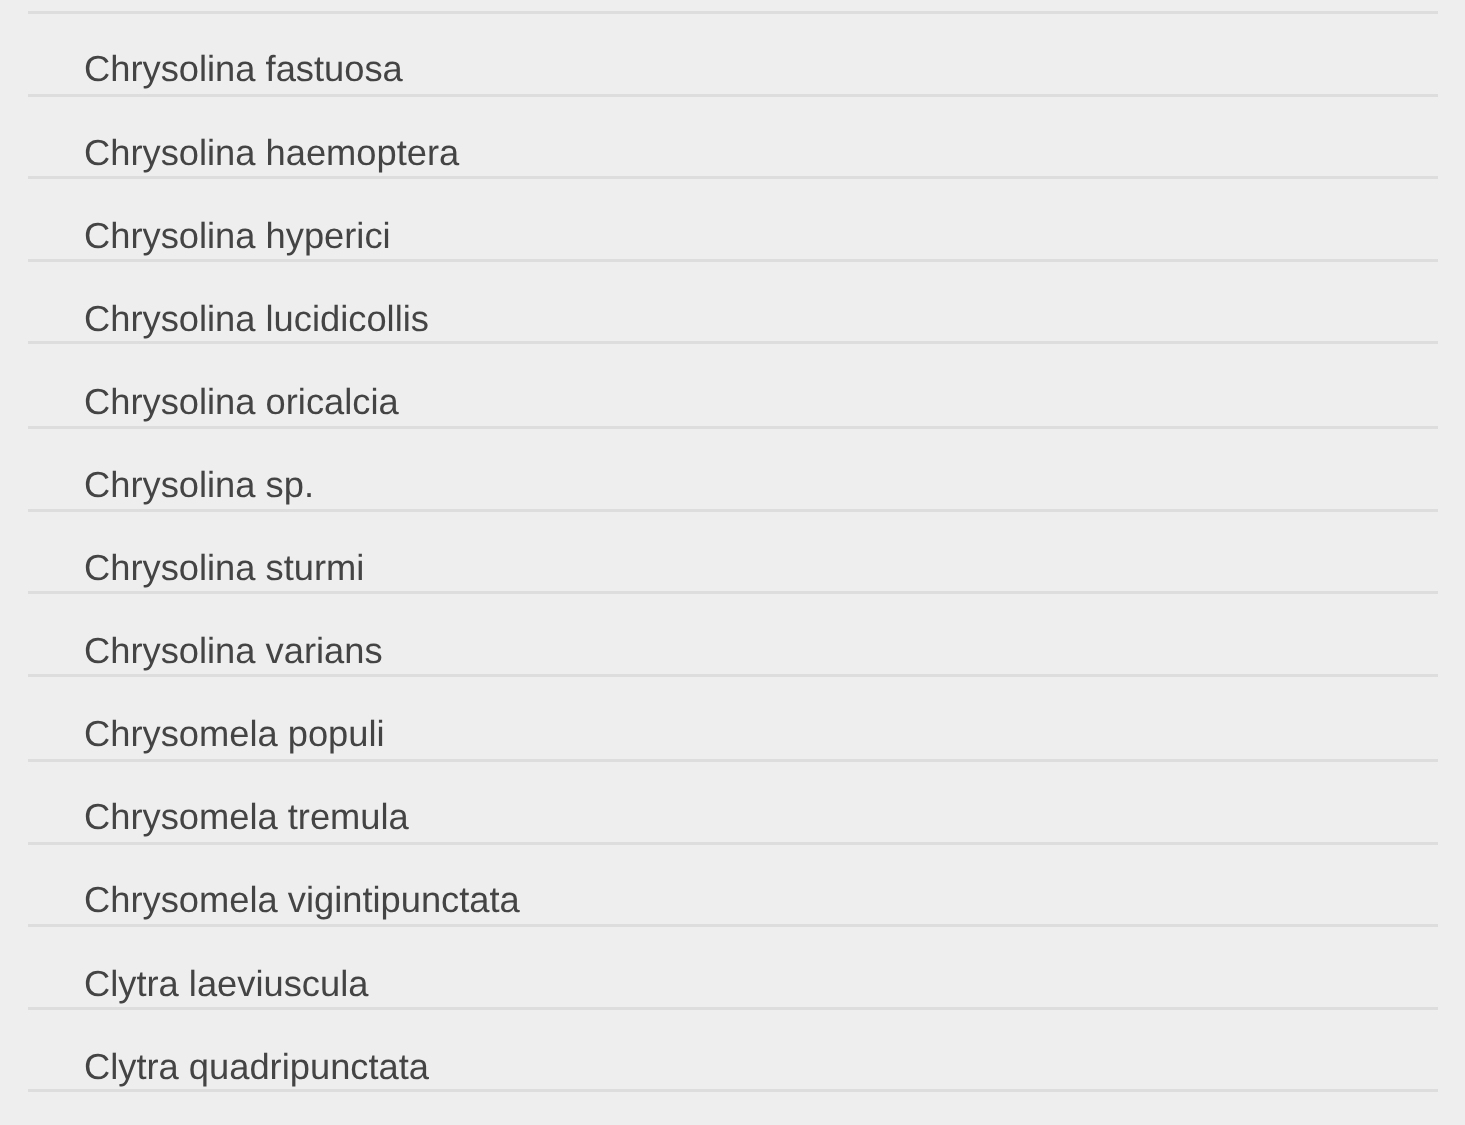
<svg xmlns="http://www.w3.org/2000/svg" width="1465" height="1125">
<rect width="100%" height="100%" fill="#eee"/>
<rect x="28" y="11" width="1410" height="3" fill="#ddd"/>
<rect x="28" y="94" width="1410" height="3" fill="#ddd"/>
<text x="84" y="81" style="font-family:Liberation Sans;font-size:36.3px;fill:#444">Chrysolina fastuosa</text>
<rect x="28" y="176" width="1410" height="3" fill="#ddd"/>
<text x="84" y="165" style="font-family:Liberation Sans;font-size:36.3px;fill:#444">Chrysolina haemoptera</text>
<rect x="28" y="259" width="1410" height="3" fill="#ddd"/>
<text x="84" y="248" style="font-family:Liberation Sans;font-size:36.3px;fill:#444">Chrysolina hyperici</text>
<rect x="28" y="341" width="1410" height="3" fill="#ddd"/>
<text x="84" y="331" style="font-family:Liberation Sans;font-size:36.3px;fill:#444">Chrysolina lucidicollis</text>
<rect x="28" y="426" width="1410" height="3" fill="#ddd"/>
<text x="84" y="414" style="font-family:Liberation Sans;font-size:36.3px;fill:#444">Chrysolina oricalcia</text>
<rect x="28" y="509" width="1410" height="3" fill="#ddd"/>
<text x="84" y="497" style="font-family:Liberation Sans;font-size:36.3px;fill:#444">Chrysolina sp.</text>
<rect x="28" y="591" width="1410" height="3" fill="#ddd"/>
<text x="84" y="580" style="font-family:Liberation Sans;font-size:36.3px;fill:#444">Chrysolina sturmi</text>
<rect x="28" y="674" width="1410" height="3" fill="#ddd"/>
<text x="84" y="663" style="font-family:Liberation Sans;font-size:36.3px;fill:#444">Chrysolina varians</text>
<rect x="28" y="759" width="1410" height="3" fill="#ddd"/>
<text x="84" y="746" style="font-family:Liberation Sans;font-size:36.3px;fill:#444">Chrysomela populi</text>
<rect x="28" y="842" width="1410" height="3" fill="#ddd"/>
<text x="84" y="829" style="font-family:Liberation Sans;font-size:36.3px;fill:#444">Chrysomela tremula</text>
<rect x="28" y="924" width="1410" height="3" fill="#ddd"/>
<text x="84" y="912" style="font-family:Liberation Sans;font-size:36.3px;fill:#444">Chrysomela vigintipunctata</text>
<rect x="28" y="1007" width="1410" height="3" fill="#ddd"/>
<text x="84" y="996" style="font-family:Liberation Sans;font-size:36.3px;fill:#444">Clytra laeviuscula</text>
<rect x="28" y="1089" width="1410" height="3" fill="#ddd"/>
<text x="84" y="1079" style="font-family:Liberation Sans;font-size:36.3px;fill:#444">Clytra quadripunctata</text>
</svg>
